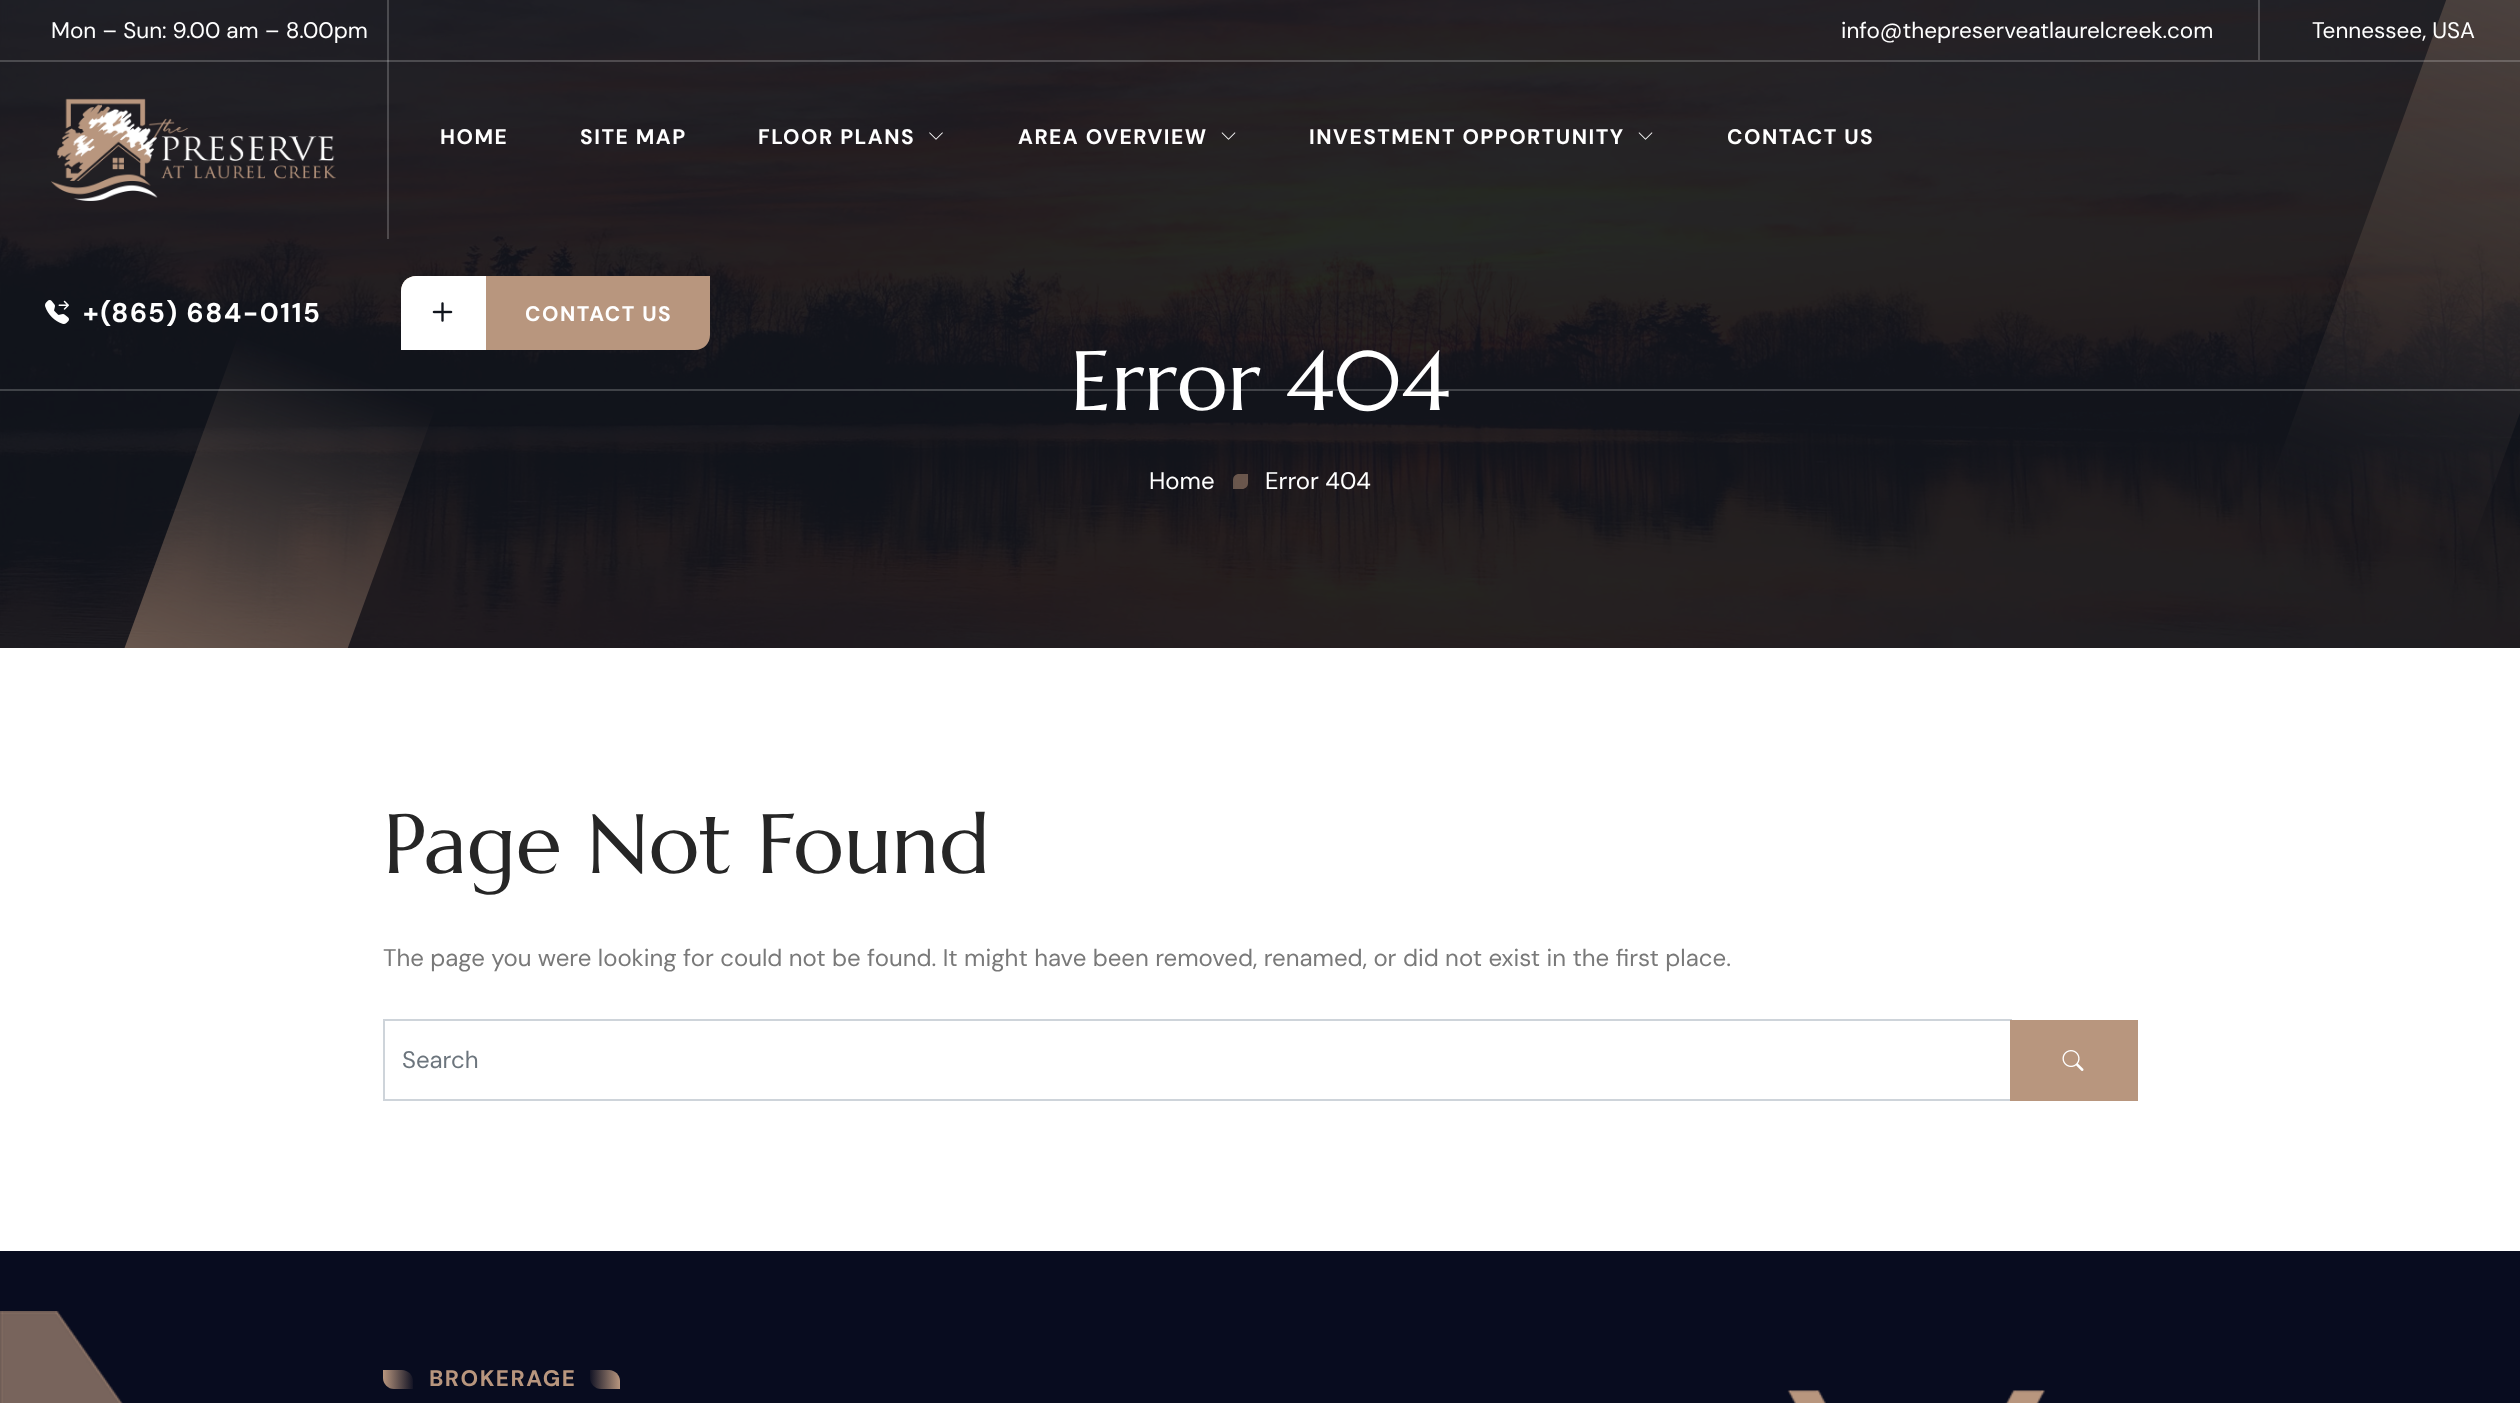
<svg xmlns="http://www.w3.org/2000/svg" width="2520" height="1403">
<defs>
<linearGradient id="g1" gradientUnits="userSpaceOnUse" x1="383" y1="1379" x2="413" y2="1379"><stop offset="0" stop-color="#b8967e"/><stop offset="1" stop-color="#131425"/></linearGradient>
<linearGradient id="g2" gradientUnits="userSpaceOnUse" x1="620" y1="1379" x2="590" y2="1379"><stop offset="0" stop-color="#b8967e"/><stop offset="1" stop-color="#131425"/></linearGradient>
</defs>
<rect width="100%" height="100%" fill="#fff"/>
<image x="0" y="0" width="2520" height="648" href="media/7.png"/>
<rect y="60" width="2520" height="2" fill="#ffffff33"/>
<text x="51" y="38" style="font-family:DM Sans;font-size:22.5px;fill:#fff">Mon – Sun: 9.00 am – 8.00pm</text>
<text x="1841" y="38" style="font-family:DM Sans;font-size:22.5px;fill:#fff">info@thepreserveatlaurelcreek.com</text>
<rect x="2258" width="2" height="60" fill="#ffffff33"/>
<text x="2312" y="38" style="font-family:DM Sans;font-size:22.5px;fill:#fff">Tennessee, USA</text>
<text x="1070" y="410" style="font-family:Marcellus;font-size:84px;fill:#fff">Error 404</text>
<rect y="389" width="2520" height="2" fill="#ffffff33"/>
<rect x="387" width="2" height="239" fill="#ffffff33"/>
<image x="51" y="98" width="285" height="103" href="media/1.png"/>
<text x="440" y="144" style="font-family:DM Sans;font-size:21px;font-weight:bold;letter-spacing:1.5px;fill:#fff">HOME</text>
<text x="580" y="144" style="font-family:DM Sans;font-size:21px;font-weight:bold;letter-spacing:1.5px;fill:#fff">SITE MAP</text>
<text x="758" y="144" style="font-family:DM Sans;font-size:21px;font-weight:bold;letter-spacing:1.5px;fill:#fff">FLOOR PLANS</text>
<image x="929" y="132" width="14" height="8" href="media/2.png"/>
<text x="1018" y="144" style="font-family:DM Sans;font-size:21px;font-weight:bold;letter-spacing:1.5px;fill:#fff">AREA OVERVIEW</text>
<image x="1221" y="132" width="15" height="8" href="media/3.png"/>
<text x="1309" y="144" style="font-family:DM Sans;font-size:21px;font-weight:bold;letter-spacing:1.5px;fill:#fff">INVESTMENT OPPORTUNITY</text>
<image x="1638" y="132" width="15" height="8" href="media/4.png"/>
<text x="1727" y="144" style="font-family:DM Sans;font-size:21px;font-weight:bold;letter-spacing:1.5px;fill:#fff">CONTACT US</text>
<image x="45" y="300" width="24" height="24" href="media/5.png"/>
<text x="83" y="322" style="font-family:DM Sans;font-size:27px;font-weight:bold;letter-spacing:1.5px;fill:#fff">+(865) 684-0115</text>
<path d="M416 276h294v59c0 8.5-6.5 15-15 15h-294v-59c0-8.5 6.5-15 15-15z" fill="#b8967e"/>
<path d="M416 276h70v74h-85v-59c0-8.5 6.5-15 15-15z" fill="#fff"/>
<image x="432" y="302" width="21" height="20" href="media/6.png"/>
<text x="525" y="321" style="font-family:DM Sans;font-size:21px;font-weight:bold;letter-spacing:1.5px;fill:#fff">CONTACT US</text>
<text x="1149" y="489" style="font-family:DM Sans;font-size:24px;fill:#fff">Home</text>
<path d="M1239 474h9v9c0 3.5-2.5 6-6 6h-9v-9c0-3.5 2.5-6 6-6z" fill="#b8967e80"/>
<text x="1265" y="489" style="font-family:DM Sans;font-size:24px;fill:#fff">Error 404</text>
<text x="383" y="873" style="font-family:Marcellus;font-size:84px;fill:#262626">Page Not Found</text>
<text x="383" y="966" style="font-family:DM Sans;font-size:24px;fill:#797979">The page you were looking for could not be found. It might have been removed, renamed, or did not exist in the first place.</text>
<rect x="384" y="1020" width="1627" height="80" fill="none" stroke="#ced4da" stroke-width="2"/>
<text x="402" y="1068" style="font-family:DM Sans;font-size:24px;fill:#6c757d">Search</text>
<rect x="2010" y="1020" width="128" height="81" fill="#b8967e"/>
<image x="2062" y="1050" width="22" height="21" href="media/8.png"/>
<rect y="1251" width="2520" height="152" fill="#080c1f"/>
<image x="0" y="1311" width="123" height="92" href="media/9.png"/>
<path d="M383 1370h19c6 0 11 5 11 11v8h-19c-6 0-11-5-11-11z" fill="url(#g1)"/>
<text x="429" y="1386" style="font-family:DM Sans;font-size:22.5px;font-weight:bold;letter-spacing:1.5px;fill:#b8967e">BROKERAGE</text>
<path d="M590 1370h19c6 0 11 5 11 11v8h-19c-6 0-11-5-11-11z" fill="url(#g2)"/>
<image x="1787" y="1390" width="258" height="13" href="media/10.png"/>
</svg>
